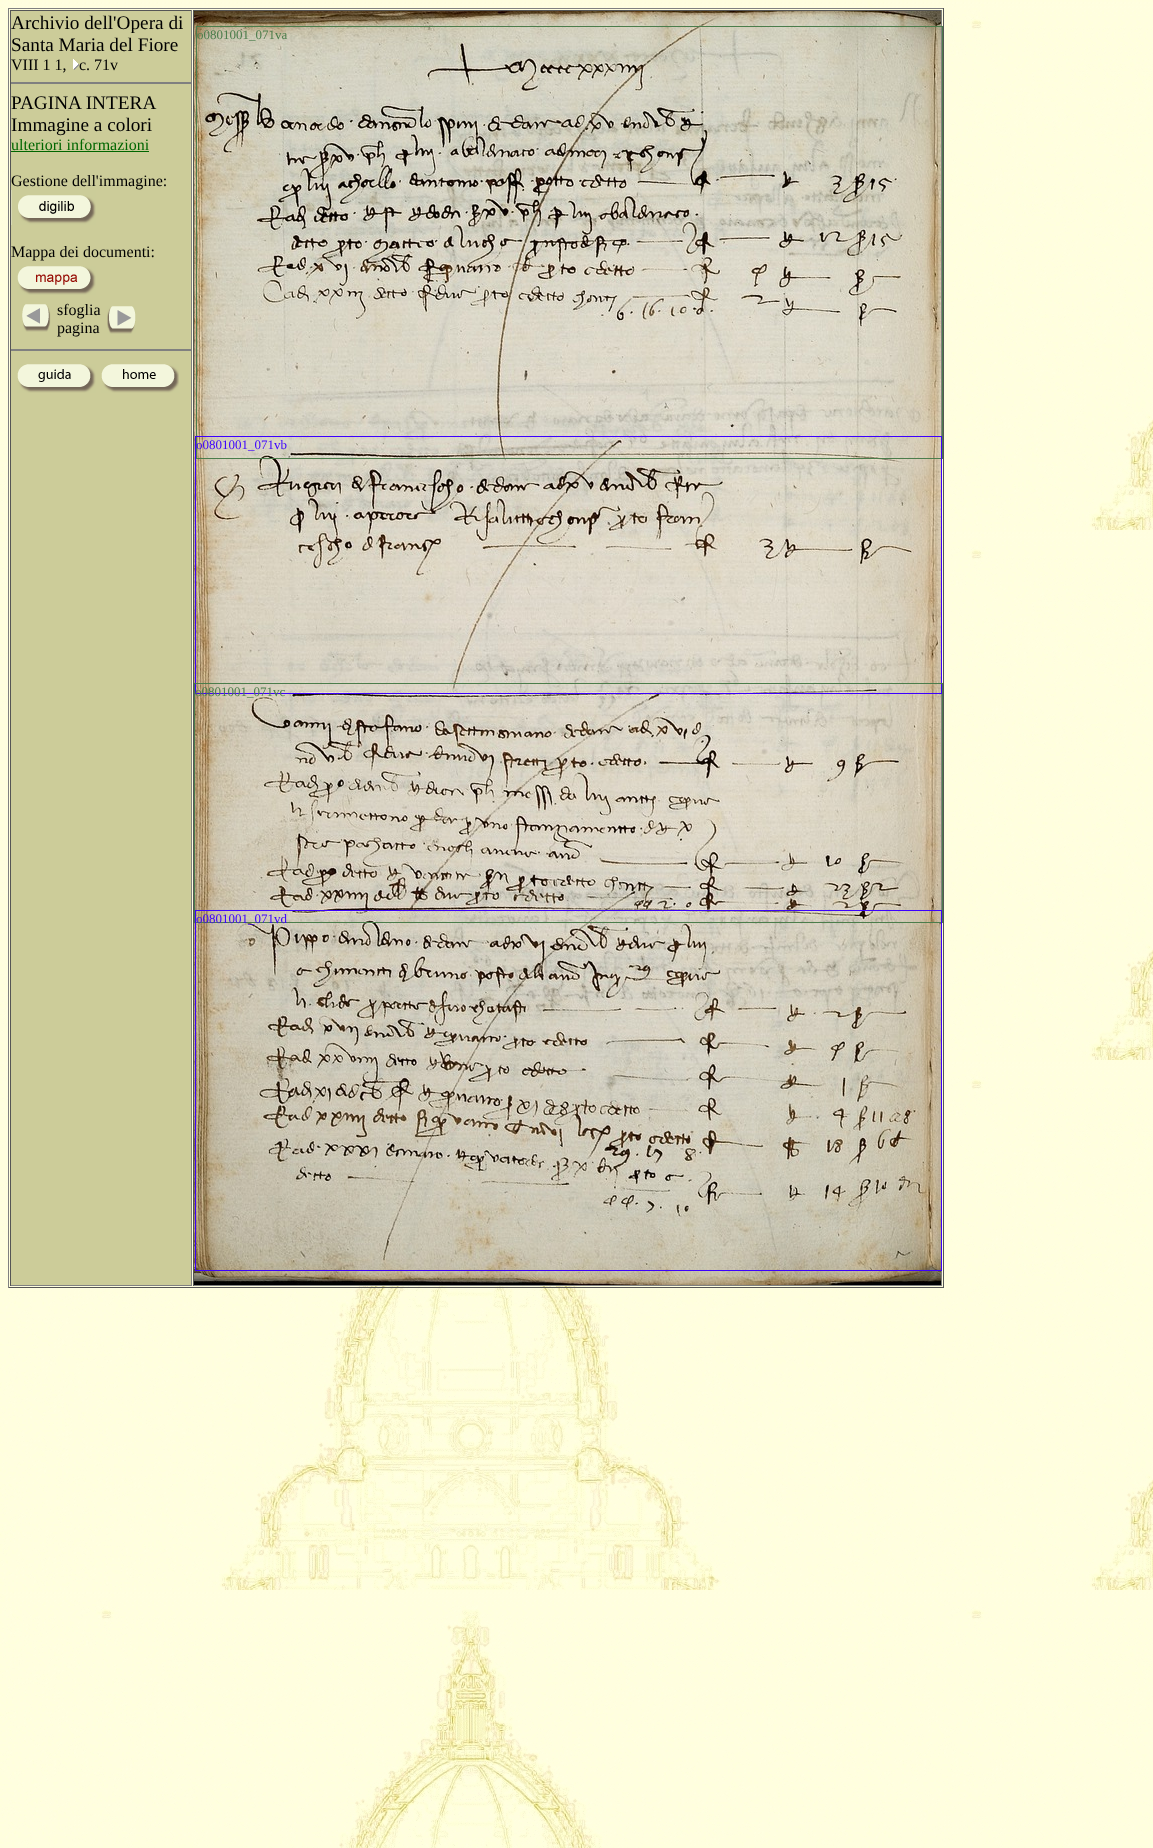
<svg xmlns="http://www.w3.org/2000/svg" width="1153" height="1848">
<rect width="100%" height="100%" fill="#fff"/>
<image x="0" y="0" width="1153" height="1848" href="media/1.png"/>
<rect x="8" y="8" width="936" height="1" fill="#808080"/>
<rect x="943" y="8" width="1" height="1280" fill="#555"/>
<rect x="8" y="1287" width="936" height="1" fill="#555"/>
<rect x="8" y="8" width="1" height="1280" fill="#808080"/>
<rect x="11" y="11" width="180" height="1274" fill="#cc9"/>
<rect x="10" y="10" width="182" height="1" fill="#555"/>
<rect x="191" y="10" width="1" height="1276" fill="#808080"/>
<rect x="10" y="1285" width="182" height="1" fill="#808080"/>
<rect x="10" y="10" width="1" height="1276" fill="#555"/>
<text x="11" y="29" style="font-family:Liberation Serif;font-size:19.25px;fill:#000">Archivio dell'Opera di</text>
<text x="11" y="51" style="font-family:Liberation Serif;font-size:19.25px;fill:#000">Santa Maria del Fiore</text>
<text x="11" y="70" style="font-family:Liberation Serif;font-size:16px;fill:#000">VIII 1 1,</text>
<image x="73" y="59" width="6" height="11" href="media/2.png"/>
<text x="79" y="70" style="font-family:Liberation Serif;font-size:16px;fill:#000">c. 71v</text>
<rect x="11" y="82" width="180" height="2" fill="#808080"/>
<text x="11" y="109" style="font-family:Liberation Serif;font-size:19.25px;fill:#000">PAGINA INTERA</text>
<text x="11" y="131" style="font-family:Liberation Serif;font-size:19.25px;fill:#000">Immagine a colori</text>
<text x="11" y="150" style="font-family:Liberation Serif;font-size:16px;fill:#060">ulteriori informazioni</text>
<rect x="11" y="151" width="138" height="1" fill="#060"/>
<text x="11" y="186" style="font-family:Liberation Serif;font-size:16px;fill:#000">Gestione dell'immagine:</text>
<image x="11" y="190" width="85" height="35" href="media/3.png"/>
<text x="11" y="257" style="font-family:Liberation Serif;font-size:16px;fill:#000">Mappa dei documenti:</text>
<image x="17" y="266" width="79" height="29" href="media/4.png"/>
<image x="22" y="304" width="29" height="28" href="media/5.png"/>
<text x="57" y="315" style="font-family:Liberation Serif;font-size:16px;fill:#000">sfoglia</text>
<text x="57" y="333" style="font-family:Liberation Serif;font-size:16px;fill:#000">pagina</text>
<image x="107" y="306" width="29" height="28" href="media/6.png"/>
<rect x="11" y="349" width="180" height="2" fill="#808080"/>
<image x="17" y="364" width="79" height="29" href="media/7.png"/>
<image x="101" y="364" width="78" height="29" href="media/8.png"/>
<rect x="193" y="10" width="749" height="1" fill="#555"/>
<rect x="941" y="10" width="1" height="1276" fill="#808080"/>
<rect x="193" y="1285" width="749" height="1" fill="#808080"/>
<rect x="193" y="10" width="1" height="1276" fill="#555"/>
<image x="194" y="11" width="747" height="1274" href="media/9.png"/>
<rect x="196.5" y="26.5" width="746" height="432" fill="none" stroke="#4b7d4b"/>
<text x="197" y="39" style="font-family:Liberation Serif;font-size:13px;fill:#4b7d4b">o0801001_071va</text>
<rect x="195.5" y="436.5" width="746" height="257" fill="none" stroke="#3c00ff"/>
<text x="196" y="449" style="font-family:Liberation Serif;font-size:13px;fill:#3c00ff">o0801001_071vb</text>
<rect x="194.5" y="683.5" width="748" height="239" fill="none" stroke="#4b7d4b"/>
<text x="195" y="696" style="font-family:Liberation Serif;font-size:13px;fill:#4b7d4b">o0801001_071vc</text>
<rect x="195.5" y="910.5" width="746" height="360" fill="none" stroke="#3c00ff"/>
<text x="196" y="923" style="font-family:Liberation Serif;font-size:13px;fill:#3c00ff">o0801001_071vd</text>
</svg>
